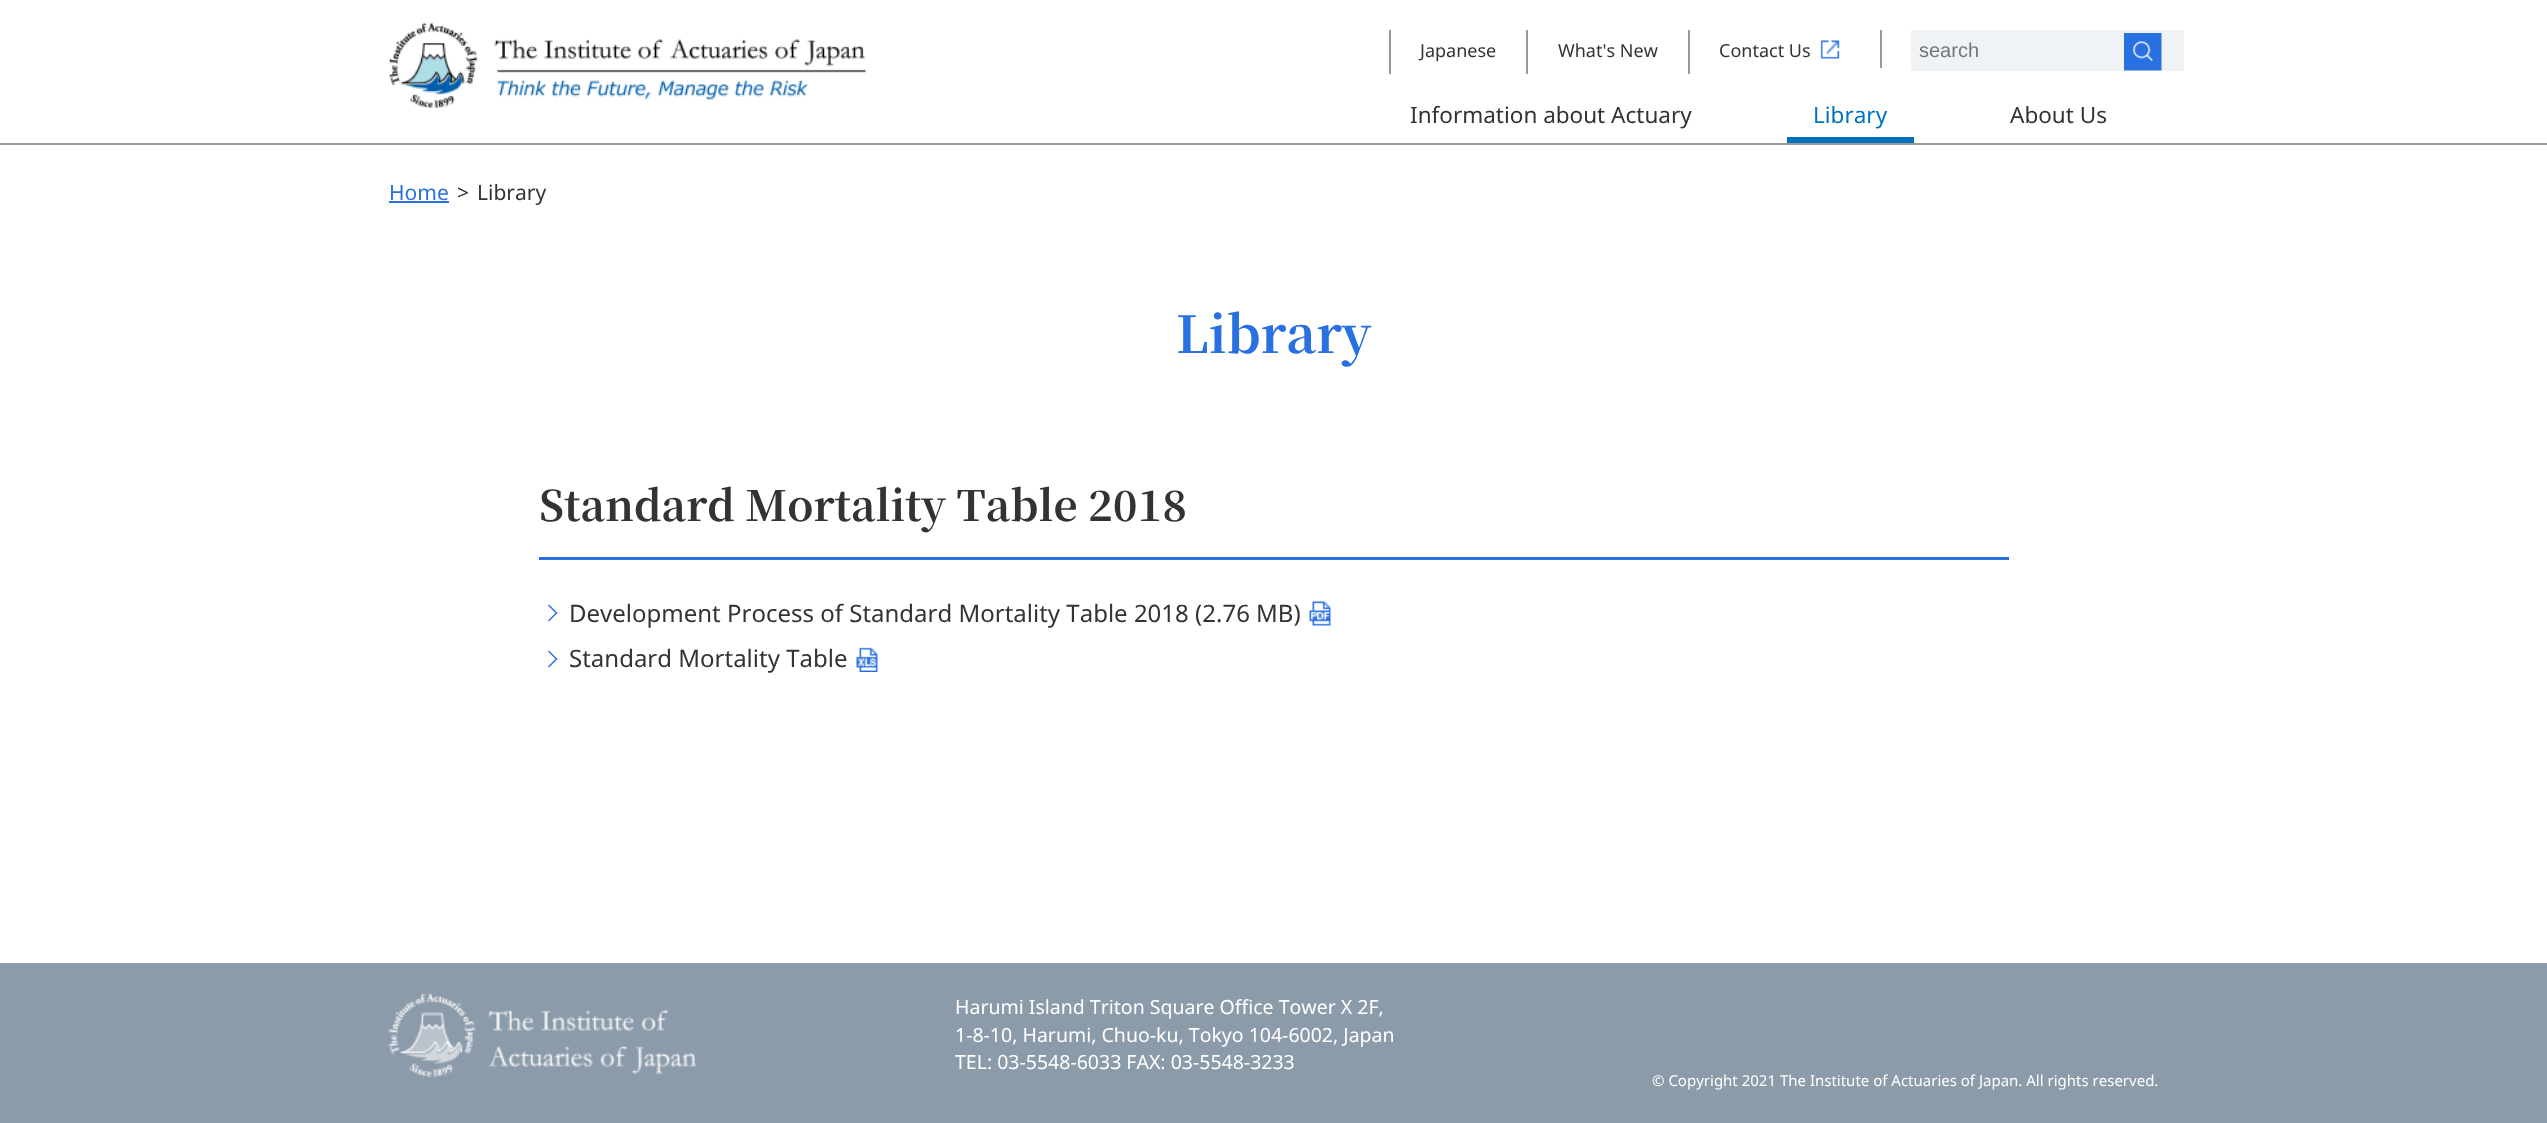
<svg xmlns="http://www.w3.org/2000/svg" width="2547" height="1123">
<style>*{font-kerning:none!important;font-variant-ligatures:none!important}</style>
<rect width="100%" height="100%" fill="#fff"/>
<image x="388" y="22" width="478" height="86" href="media/1.png"/>
<rect x="1389" y="30" width="2" height="44" fill="#999"/>
<text x="1420" y="57" style="font-family:Noto Sans;font-size:18px;fill:#333">Japanese</text>
<rect x="1526" y="30" width="2" height="44" fill="#999"/>
<text x="1558" y="57" style="font-family:Noto Sans;font-size:18px;fill:#333">What's New</text>
<rect x="1688" y="30" width="2" height="44" fill="#999"/>
<text x="1719" y="57" style="font-family:Noto Sans;font-size:18px;fill:#333">Contact Us</text>
<image x="1820" y="40" width="20" height="19" href="media/2.png"/>
<rect x="1880" y="30" width="2" height="38" fill="#999"/>
<rect x="1911" y="30" width="273" height="41" fill="#f0f3f6"/>
<text x="1919" y="57" style="font-family:Liberation Sans;font-size:20px;fill:#757575">search</text>
<image x="2124" y="33" width="38" height="38" href="media/3.png"/>
<text x="1410" y="123" style="font-family:Noto Sans;font-size:22.5px;fill:#333">Information about Actuary</text>
<text x="1813" y="123" style="font-family:Noto Sans;font-size:22.5px;fill:#0072bf">Library</text>
<rect x="1787" y="137" width="127" height="6" fill="#0072bf"/>
<text x="2010" y="123" style="font-family:Noto Sans;font-size:22.5px;fill:#333">About Us</text>
<rect y="143" width="2547" height="2" fill="#999"/>
<text x="389" y="200" style="font-family:Noto Sans;font-size:21px;fill:#2970e0">Home</text>
<rect x="389" y="201" width="60" height="2" fill="#2970e0"/>
<text x="457" y="200" style="font-family:Noto Sans;font-size:21px;fill:#333">&gt;</text>
<text x="477" y="200" style="font-family:Noto Sans;font-size:21px;fill:#333">Library</text>
<text x="1176" y="353" style="font-family:Noto Serif JP;font-size:51px;font-weight:200;fill:#2970e0">Library</text>
<rect x="539" y="557" width="1470" height="3" fill="#2970e0"/>
<text x="539" y="521" style="font-family:Noto Serif JP;font-size:42px;font-weight:200;fill:#333">Standard Mortality Table 2018</text>
<path d="M548 605.5l1-1l8.5 8.5l-1 1z" fill="#2970e0"/>
<path d="M548 620.5l8.5-8.5l1 1l-8.5 8.5z" fill="#2970e0"/>
<text x="569" y="622" style="font-family:Noto Sans;font-size:24px;fill:#333">Development Process of Standard Mortality Table 2018 (2.76 MB)</text>
<image x="1309" y="601" width="22" height="25" href="media/4.png"/>
<path d="M548 651.5l1-1l8.5 8.5l-1 1z" fill="#2970e0"/>
<path d="M548 666.5l8.5-8.5l1 1l-8.5 8.5z" fill="#2970e0"/>
<text x="569" y="667" style="font-family:Noto Sans;font-size:24px;fill:#333">Standard Mortality Table</text>
<image x="856" y="647" width="22" height="25" href="media/5.png"/>
<rect y="963" width="2547" height="160" fill="#8c9baa"/>
<image x="388" y="993" width="309" height="84" href="media/6.png"/>
<text x="955" y="1014" style="font-family:Noto Sans;font-size:19.5px;fill:#fff">Harumi Island Triton Square Office Tower X 2F,</text>
<text x="955" y="1042" style="font-family:Noto Sans;font-size:19.5px;fill:#fff">1-8-10, Harumi, Chuo-ku, Tokyo 104-6002, Japan</text>
<text x="955" y="1069" style="font-family:Noto Sans;font-size:19.5px;fill:#fff">TEL: 03-5548-6033 FAX: 03-5548-3233</text>
<text x="1652" y="1086" style="font-family:Noto Sans;font-size:15px;fill:#fff">© Copyright 2021 The Institute of Actuaries of Japan. All rights reserved.</text>
</svg>
